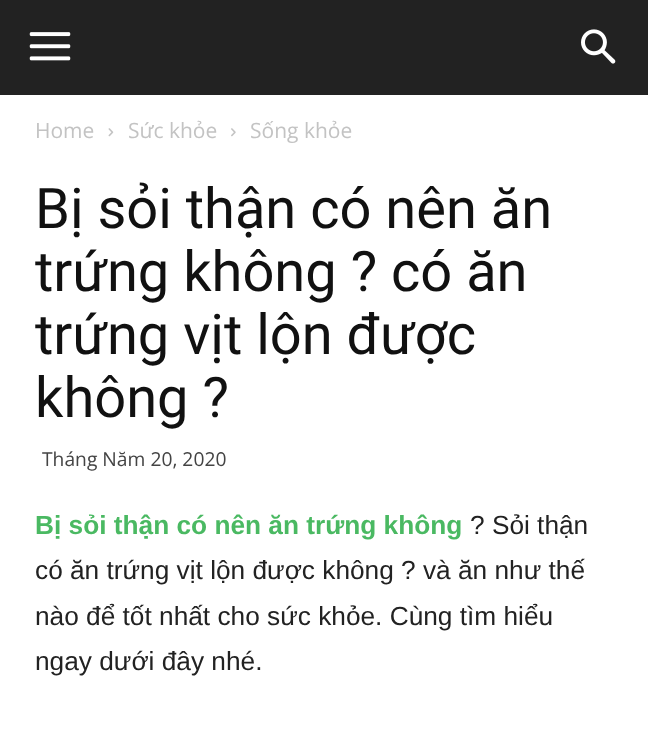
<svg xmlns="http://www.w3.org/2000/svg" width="648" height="754">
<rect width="100%" height="100%" fill="#fff"/>
<rect width="648" height="95" fill="#222"/>
<image x="29" y="32" width="42" height="29" href="media/1.png"/>
<image x="581" y="29" width="35" height="35" href="media/2.png"/>
<text x="35" y="138" style="font-family:Open Sans;font-size:21px;fill:#c3c3c3">Home</text>
<image x="108" y="128" width="6" height="9" href="media/3.png"/>
<text x="128" y="138" style="font-family:Open Sans;font-size:21px;fill:#c3c3c3">Sức khỏe</text>
<image x="231" y="128" width="5" height="9" href="media/4.png"/>
<text x="250" y="138" style="font-family:Open Sans;font-size:21px;fill:#c3c3c3">Sống khỏe</text>
<text x="35" y="228" style="font-family:Roboto;font-size:56px;fill:#111">Bị sỏi thận có nên ăn</text>
<text x="35" y="291" style="font-family:Roboto;font-size:56px;fill:#111">trứng không ? có ăn</text>
<text x="35" y="354" style="font-family:Roboto;font-size:56px;fill:#111">trứng vịt lộn được</text>
<text x="35" y="417" style="font-family:Roboto;font-size:56px;fill:#111">không ?</text>
<text x="42" y="466" style="font-family:Open Sans;font-size:19.25px;fill:#444">Tháng Năm 20, 2020</text>
<text x="35" y="534" style="font-family:Liberation Sans;font-size:26.25px;font-weight:bold;fill:#4ab962">Bị sỏi thận có nên ăn trứng không</text>
<text x="470" y="534" style="font-family:Liberation Sans;font-size:26.25px;fill:#222">? Sỏi thận</text>
<text x="35" y="579" style="font-family:Liberation Sans;font-size:26.25px;fill:#222">có ăn trứng vịt lộn được không ? và ăn như thế</text>
<text x="35" y="625" style="font-family:Liberation Sans;font-size:26.25px;fill:#222">nào để tốt nhất cho sức khỏe. Cùng tìm hiểu</text>
<text x="35" y="670" style="font-family:Liberation Sans;font-size:26.25px;fill:#222">ngay dưới đây nhé.</text>
</svg>
